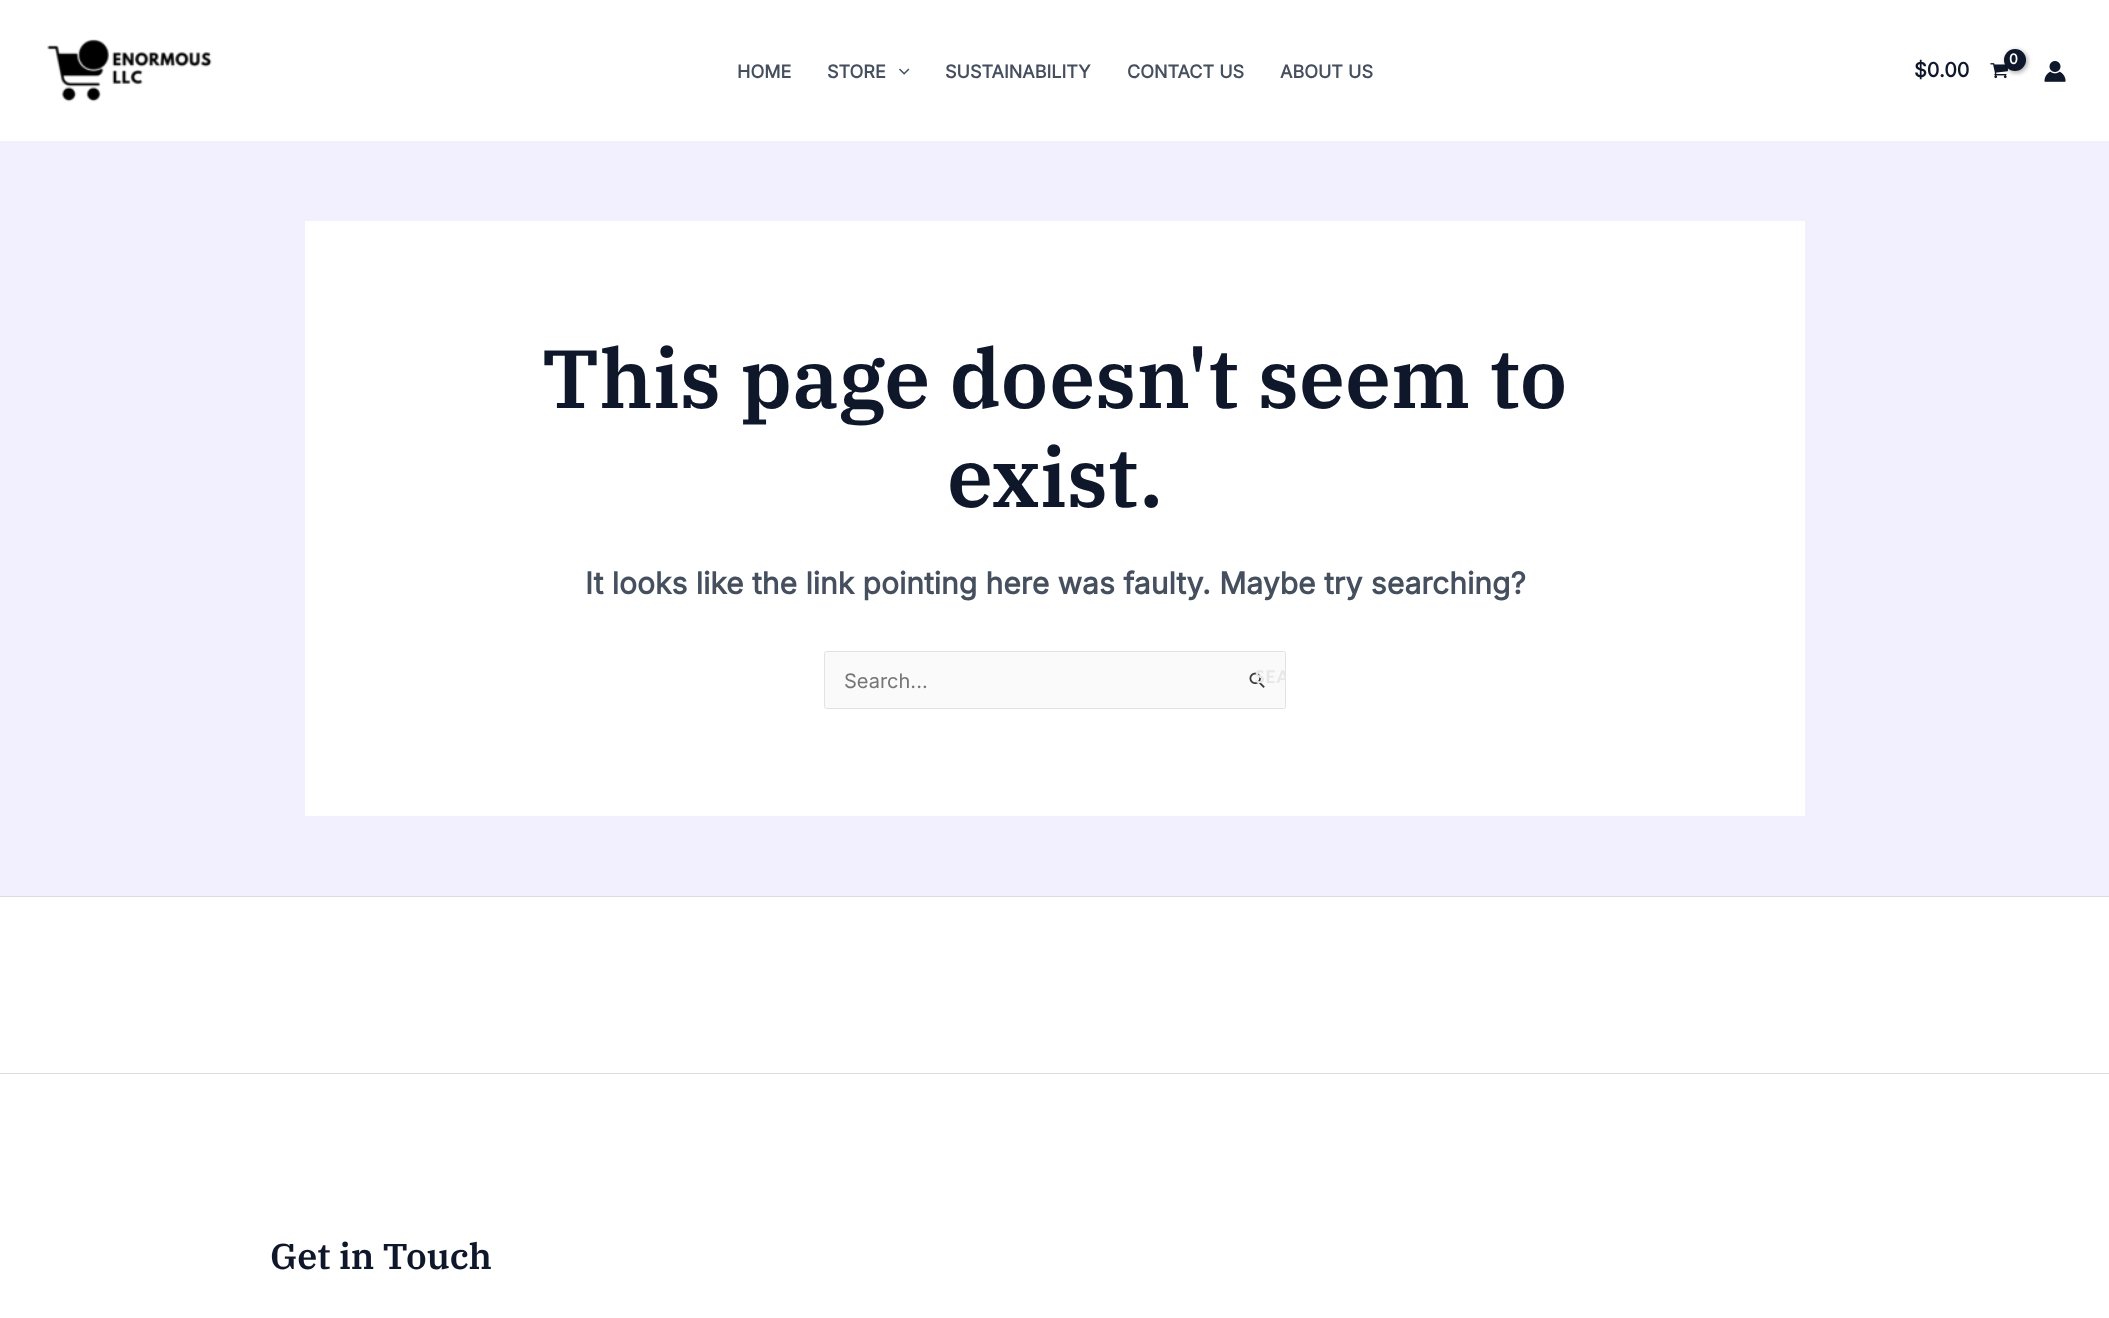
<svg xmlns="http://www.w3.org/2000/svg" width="2109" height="1318">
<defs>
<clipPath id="clip1"><rect x="1230" y="651" width="56" height="50" rx="2.5"/></clipPath>
</defs>
<rect width="100%" height="100%" fill="#f2f0fe"/>
<rect width="2109" height="141" fill="#fff"/>
<image x="47" y="39" width="165" height="63" href="media/1.png"/>
<text x="737" y="78" style="font-family:Inter;font-size:18px;font-weight:bold;fill:#454f5e">HOME</text>
<text x="827" y="78" style="font-family:Inter;font-size:18px;font-weight:bold;fill:#454f5e">STORE</text>
<image x="899" y="68" width="11" height="7" href="media/2.png"/>
<text x="945" y="78" style="font-family:Inter;font-size:18px;font-weight:bold;fill:#454f5e">SUSTAINABILITY</text>
<text x="1127" y="78" style="font-family:Inter;font-size:18px;font-weight:bold;fill:#454f5e">CONTACT US</text>
<text x="1280" y="78" style="font-family:Inter;font-size:18px;font-weight:bold;fill:#454f5e">ABOUT US</text>
<text x="1914" y="77" style="font-family:Inter;font-size:20px;font-weight:bold;fill:#0f172a">$0.00</text>
<image x="1990" y="63" width="18" height="16" href="media/3.png"/>
<rect x="2005" y="50" width="23" height="23" rx="11.5" fill="#0000004d" filter="blur(2px)"/>
<circle cx="2015" cy="60" r="11" fill="#0f172a"/>
<text x="2009" y="64" style="font-family:Inter;font-size:14px;font-weight:bold;letter-spacing:-1px;fill:#fff">0</text>
<image x="2044" y="61" width="22" height="21" href="media/4.png"/>
<rect x="305" y="221" width="1500" height="595" fill="#fff"/>
<text x="542" y="408" style="font-family:IBM Plex Serif;font-size:82.5px;font-weight:600;fill:#0f172a">This page doesn't seem to</text>
<text x="947" y="507" style="font-family:IBM Plex Serif;font-size:82.5px;font-weight:600;fill:#0f172a">exist.</text>
<text x="585" y="594" style="font-family:Inter;font-size:30px;font-weight:bold;fill:#454f5e">It looks like the link pointing here was faulty. Maybe try searching?</text>
<rect x="824.5" y="651.5" width="461" height="57" rx="2" fill="#fafafa" stroke="#e2e2e2"/>
<text x="844" y="688" style="font-family:Inter;font-size:20px;fill:#757575">Search...</text>
<image x="1249" y="672" width="16" height="16" href="media/5.png"/>
<g clip-path="url(#clip1)">
<text x="1255" y="683" style="font-family:Lato;font-size:17.5px;font-weight:bold;letter-spacing:1px;fill:#e7e7e7">SEA</text>
</g>
<rect y="897" width="2109" height="421" fill="#fff"/>
<rect y="896" width="2109" height="1" fill="#ddd"/>
<rect y="1073" width="2109" height="1" fill="#ddd"/>
<text x="270" y="1269" style="font-family:IBM Plex Serif;font-size:36px;font-weight:600;fill:#0f172a">Get in Touch</text>
</svg>
